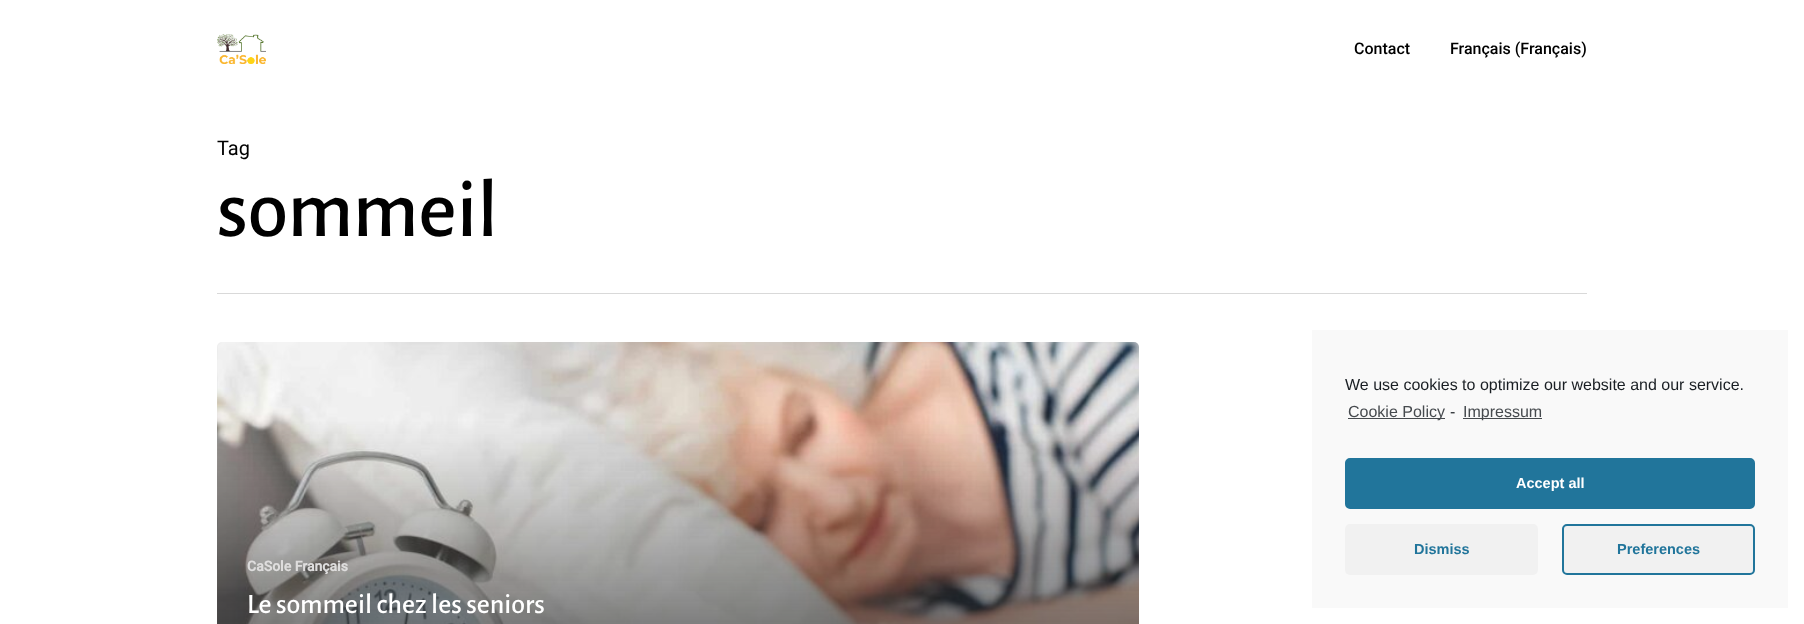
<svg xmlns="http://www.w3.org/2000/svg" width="1804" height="624">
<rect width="100%" height="100%" fill="#fff"/>
<image x="217" y="34" width="49" height="30" href="media/1.png"/>
<text x="1354" y="54" style="font-family:Roboto;font-size:16px;font-weight:500;fill:#000">Contact</text>
<text x="1450" y="54" style="font-family:Roboto;font-size:16px;font-weight:500;fill:#000">Français (Français)</text>
<rect x="217" y="293" width="1370" height="1" fill="#d9d9d9"/>
<text x="217" y="155" style="font-family:Roboto;font-size:20px;fill:#000">Tag</text>
<text x="217" y="236" style="font-family:Alegreya Sans;font-size:82px;font-weight:500;fill:#000">sommeil</text>
<image x="217" y="342" width="922" height="282" href="media/2.png"/>
<text x="247" y="571" style="font-family:Roboto;font-size:14px;font-weight:bold;fill:#dedddd">CaSole Français</text>
<text x="247" y="613" style="font-family:Alegreya Sans;font-size:28px;font-weight:500;fill:#fff">Le sommeil chez les seniors</text>
<rect x="1312" y="330" width="476" height="278" fill="#f9f9f9"/>
<text x="1345" y="390" style="font-family:Liberation Sans;font-size:16px;fill:#191e23">We use cookies to optimize our website and our service.</text>
<rect x="1348" y="418" width="97" height="1" fill="#464a4e"/>
<text x="1348" y="417" style="font-family:Liberation Sans;font-size:16px;fill:#464a4e">Cookie Policy</text>
<text x="1450" y="417" style="font-family:Liberation Sans;font-size:16px;fill:#191e23">-</text>
<rect x="1463" y="418" width="79" height="1" fill="#464a4e"/>
<text x="1463" y="417" style="font-family:Liberation Sans;font-size:16px;fill:#464a4e">Impressum</text>
<rect x="1346" y="459" width="408" height="49" rx="4" fill="#21759b" stroke="#21759b" stroke-width="2"/>
<text x="1516" y="488" style="font-family:Liberation Sans;font-size:14.5px;font-weight:bold;fill:#fff">Accept all</text>
<rect x="1345" y="524" width="193" height="51" rx="5" fill="#f1f1f1"/>
<text x="1414" y="554" style="font-family:Liberation Sans;font-size:14.5px;font-weight:bold;fill:#21759b">Dismiss</text>
<rect x="1563" y="525" width="191" height="49" rx="4" fill="#f1f1f1" stroke="#21759b" stroke-width="2"/>
<text x="1617" y="554" style="font-family:Liberation Sans;font-size:14.5px;font-weight:bold;fill:#21759b">Preferences</text>
</svg>
